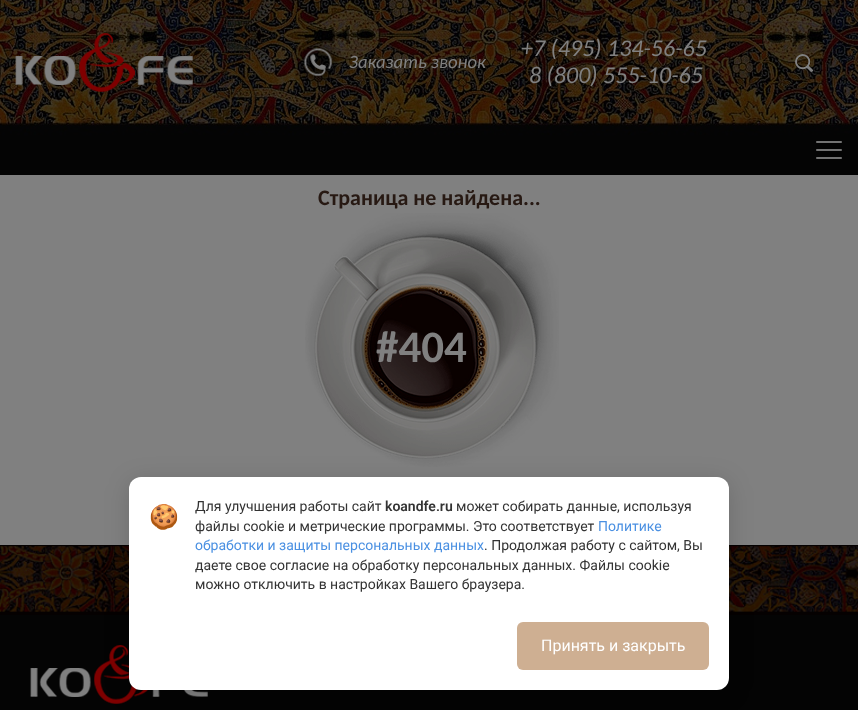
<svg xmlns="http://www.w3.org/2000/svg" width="858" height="710">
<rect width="100%" height="100%" fill="#808080"/>
<image x="0" y="0" width="858" height="175" href="media/1.png"/>
<image x="15" y="33" width="178" height="59" href="media/2.png"/>
<image x="294" y="38" width="50" height="51" href="media/3.png"/>
<text x="349" y="68" style="font-family:Carlito;font-size:18.75px;font-style:italic;fill:#808080">Заказать звонок</text>
<text x="521" y="56" style="font-family:Carlito;font-size:24px;font-style:italic;fill:#808080">+7 (495) 134-56-65</text>
<text x="529" y="83" style="font-family:Carlito;font-size:24px;font-style:italic;fill:#808080">8 (800) 555-10-65</text>
<image x="795" y="54" width="18" height="18" href="media/4.png"/>
<rect x="238" y="130" width="222" height="1" fill="#040404"/>
<image x="816" y="141" width="26" height="18" href="media/5.png"/>
<text x="318" y="205" style="font-family:Carlito;font-size:22px;font-weight:bold;fill:#271913">Страница не найдена...</text>
<image x="305" y="213" width="254" height="254" href="media/6.png"/>
<text x="376" y="362" style="font-family:Carlito;font-size:45px;font-weight:bold;fill:#808080">#404</text>
<rect y="545" width="858" height="165" fill="#040404"/>
<image x="0" y="545" width="858" height="70" href="media/7.png"/>
<image x="30" y="645" width="178" height="59" href="media/8.png"/>
<rect x="129" y="481" width="600" height="213" rx="12" fill="#00000026" filter="blur(12px)"/>
<rect x="129" y="477" width="600" height="213" rx="12" fill="#fff"/>
<text x="149" y="525" style="font-family:Noto Color Emoji;font-size:24px;fill:#4d3225">🍪</text>
<text x="195" y="511" style="font-family:Roboto;font-size:14px;fill:#333">Для улучшения работы сайт</text>
<text x="385" y="511" style="font-family:Roboto;font-size:14px;font-weight:600;fill:#333">koandfe.ru</text>
<text x="456" y="511" style="font-family:Roboto;font-size:14px;fill:#333">может собирать данные, используя</text>
<text x="195" y="531" style="font-family:Roboto;font-size:14px;fill:#333">файлы cookie и метрические программы. Это соответствует</text>
<text x="598" y="531" style="font-family:Roboto;font-size:14px;fill:#4a90e2">Политике</text>
<text x="195" y="550" style="font-family:Roboto;font-size:14px;fill:#4a90e2">обработки и защиты персональных данных</text>
<text x="484" y="550" style="font-family:Roboto;font-size:14px;fill:#333">. Продолжая работу с сайтом, Вы</text>
<text x="195" y="570" style="font-family:Roboto;font-size:14px;fill:#333">даете свое согласие на обработку персональных данных. Файлы cookie</text>
<text x="195" y="589" style="font-family:Roboto;font-size:14px;fill:#333">можно отключить в настройках Вашего браузера.</text>
<rect x="517" y="622" width="192" height="48" rx="6" fill="#ceaf92"/>
<text x="541" y="651" style="font-family:Roboto;font-size:16px;fill:#fff">Принять и закрыть</text>
</svg>
